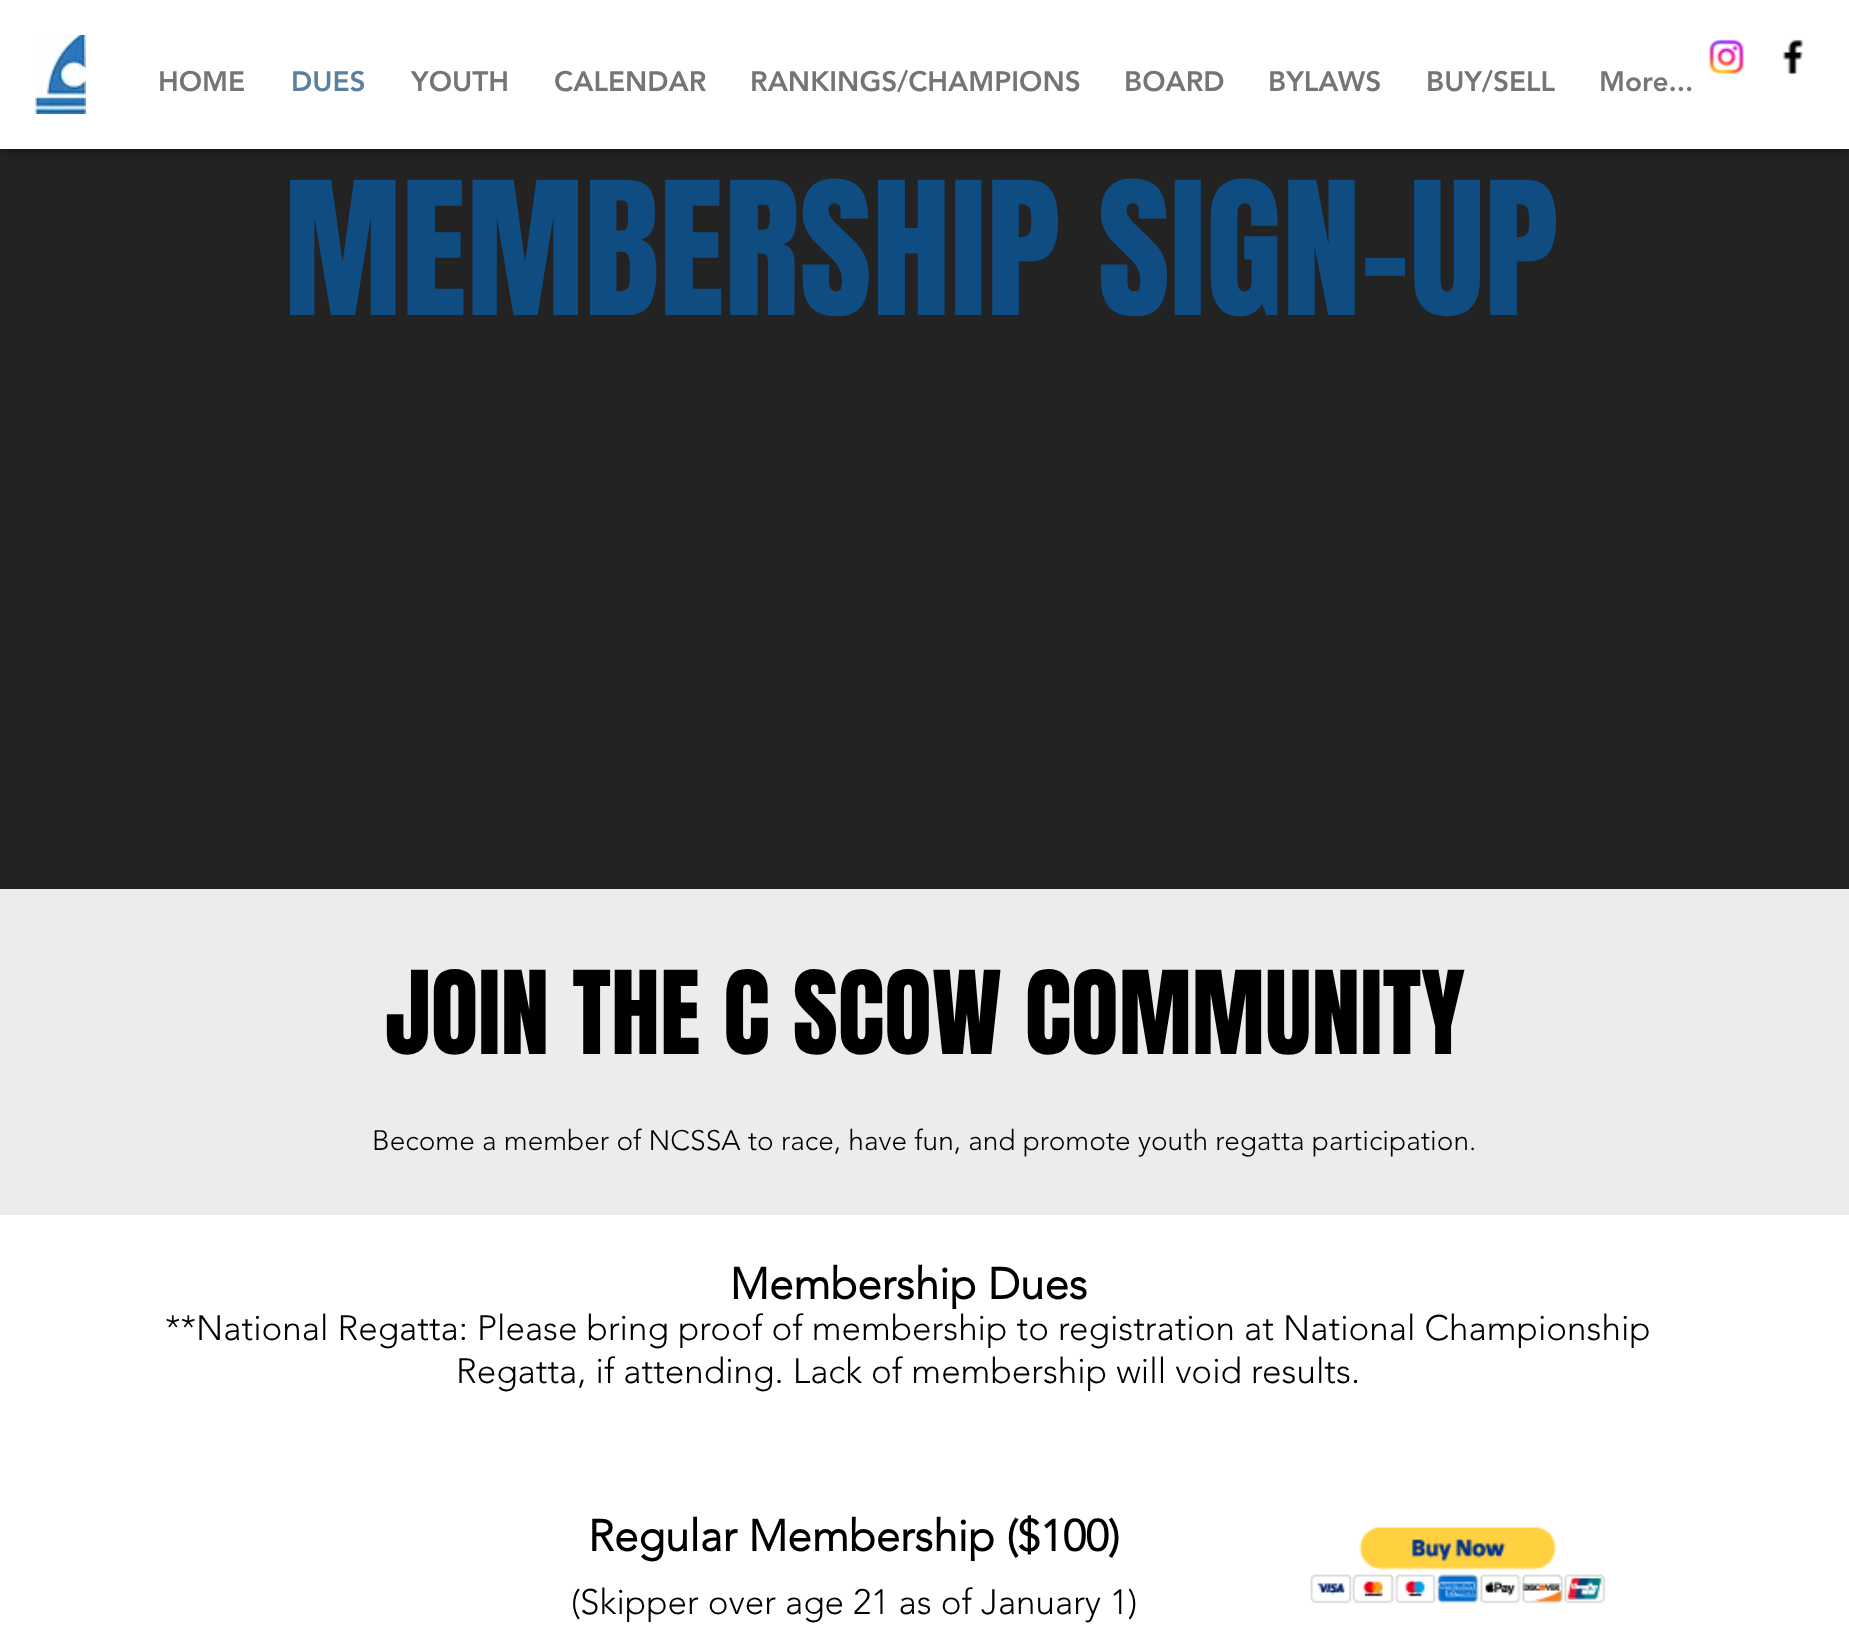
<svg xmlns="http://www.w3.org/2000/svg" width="1849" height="1645">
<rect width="100%" height="100%" fill="#fff"/>
<rect y="149" width="1849" height="740" fill="#242323"/>
<rect width="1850" height="149" fill="#000000b3" filter="blur(4.5px)"/>
<rect width="1849" height="149" fill="#fff"/>
<image x="35" y="35" width="51" height="79" href="media/1.png"/>
<image x="1708" y="39" width="36" height="35" href="media/2.png"/>
<image x="1782" y="39" width="22" height="36" href="media/3.png"/>
<text x="158" y="91" style="font-family:'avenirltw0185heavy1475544';font-size:28px;font-weight:900;fill:#757575">HOME</text>
<text x="291" y="91" style="font-family:'avenirltw0185heavy1475544';font-size:28px;font-weight:900;fill:#5a80a1">DUES</text>
<text x="411" y="91" style="font-family:'avenirltw0185heavy1475544';font-size:28px;font-weight:900;fill:#757575">YOUTH</text>
<text x="554" y="91" style="font-family:'avenirltw0185heavy1475544';font-size:28px;font-weight:900;fill:#757575">CALENDAR</text>
<text x="750" y="91" style="font-family:'avenirltw0185heavy1475544';font-size:28px;font-weight:900;fill:#757575">RANKINGS/CHAMPIONS</text>
<text x="1124" y="91" style="font-family:'avenirltw0185heavy1475544';font-size:28px;font-weight:900;fill:#757575">BOARD</text>
<text x="1268" y="91" style="font-family:'avenirltw0185heavy1475544';font-size:28px;font-weight:900;fill:#757575">BYLAWS</text>
<text x="1426" y="91" style="font-family:'avenirltw0185heavy1475544';font-size:28px;font-weight:900;fill:#757575">BUY/SELL</text>
<text x="1599" y="91" style="font-family:'avenirltw0185heavy1475544';font-size:28px;font-weight:900;fill:#757575">More...</text>
<text x="284" y="315" style="font-family:Anton;font-size:157.5px;fill:#0f4c81">MEMBERSHIP SIGN-UP</text>
<rect y="889" width="1849" height="326" fill="#edebeb"/>
<text x="385" y="1054" style="font-family:Anton;font-size:98px;fill:#000">JOIN THE C SCOW COMMUNITY</text>
<text x="372" y="1150" style="font-family:'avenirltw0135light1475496';font-size:28px;font-weight:300;fill:#000">Become a member of NCSSA to race, have fun, and promote youth regatta participation.</text>
<text x="730" y="1299" style="font-family:'avenirltw0135light1475496';font-size:43.75px;font-weight:bold;fill:#000">Membership Dues</text>
<text x="165" y="1340" style="font-family:'avenirltw0135light1475496';font-size:35px;font-weight:300;fill:#000">**National Regatta: Please bring proof of membership to registration at National Championship</text>
<text x="456" y="1383" style="font-family:'avenirltw0135light1475496';font-size:35px;font-weight:300;fill:#000">Regatta, if attending. Lack of membership will void results.</text>
<text x="588" y="1551" style="font-family:'avenirltw0135light1475496';font-size:43.75px;font-weight:bold;fill:#000">Regular Membership ($100)</text>
<text x="571" y="1614" style="font-family:'avenirltw0135light1475496';font-size:35px;font-weight:300;fill:#000">(Skipper over age 21 as of January 1)</text>
<image x="1310" y="1527" width="296" height="77" href="media/4.png"/>
</svg>
